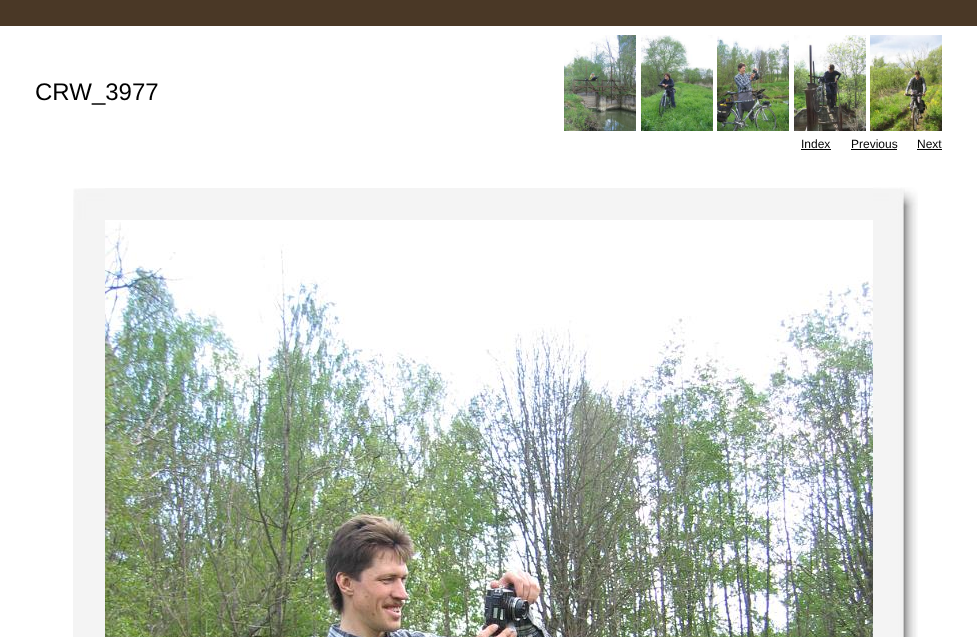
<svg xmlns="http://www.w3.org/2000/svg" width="977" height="637">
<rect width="100%" height="100%" fill="#fff"/>
<rect width="977" height="26" fill="#4a3826"/>
<text x="35" y="100" style="font-family:Liberation Sans;font-size:24px;fill:#000">CRW_3977</text>
<image x="564" y="35" width="72" height="96" href="media/1.png"/>
<image x="641" y="35" width="72" height="96" href="media/2.png"/>
<image x="717" y="36" width="72" height="95" href="media/3.png"/>
<image x="794" y="35" width="72" height="96" href="media/4.png"/>
<image x="870" y="35" width="72" height="96" href="media/5.png"/>
<text x="801" y="148" style="font-family:Liberation Sans;font-size:12px;fill:#000">Index</text>
<rect x="801" y="149" width="30" height="1" fill="#000"/>
<text x="851" y="148" style="font-family:Liberation Sans;font-size:12px;fill:#000">Previous</text>
<rect x="851" y="149" width="46" height="1" fill="#000"/>
<text x="917" y="148" style="font-family:Liberation Sans;font-size:12px;fill:#000">Next</text>
<rect x="917" y="149" width="25" height="1" fill="#000"/>
<image x="73" y="188" width="32" height="32" href="media/6.png"/>
<rect x="105" y="188" width="768" height="32" fill="#f4f4f4"/>
<image x="873" y="187" width="45" height="33" href="media/7.png"/>
<rect x="73" y="220" width="32" height="417" fill="#f4f4f4"/>
<image x="105" y="222" width="768" height="415" href="media/8.png"/>
<image x="873" y="220" width="45" height="417" href="media/9.png"/>
</svg>
